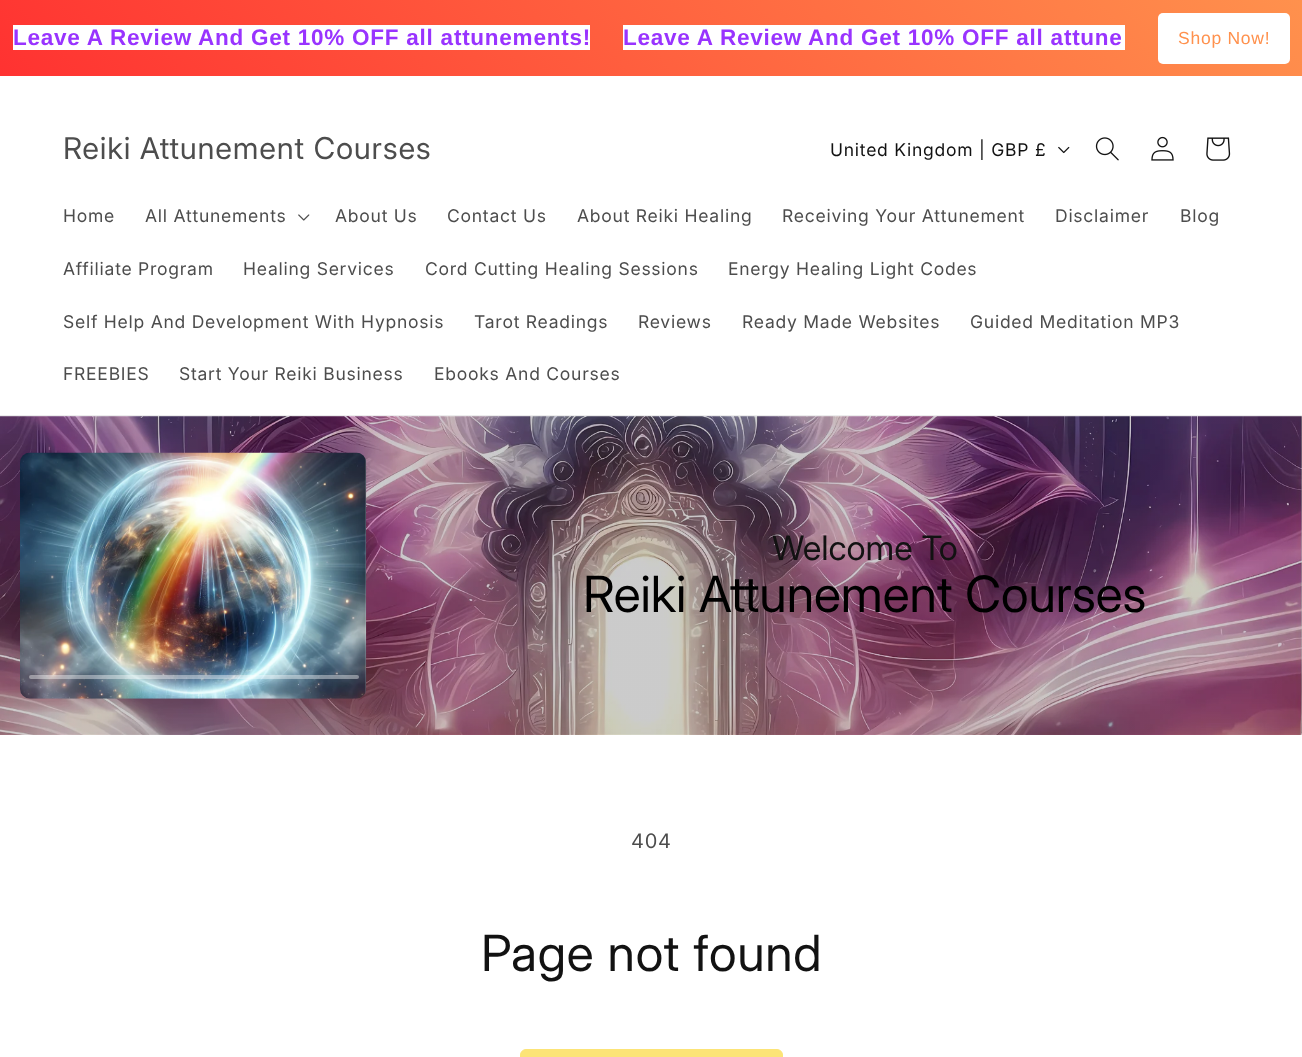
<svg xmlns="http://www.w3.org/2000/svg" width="1302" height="1057">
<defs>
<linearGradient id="g1" gradientUnits="userSpaceOnUse" x1="284" y1="381" x2="1019" y2="-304"><stop offset="0" stop-color="#ff3231"/><stop offset="1" stop-color="#ff914d"/></linearGradient>
</defs>
<rect width="100%" height="100%" fill="#fff"/>
<rect width="1302" height="76" fill="url(#g1)"/>
<rect x="13" y="25" width="577" height="25" fill="#fff"/>
<text x="13" y="45" style="font-family:Liberation Sans;font-size:22.5px;font-weight:bold;letter-spacing:0.75px;fill:#93f">Leave A Review And Get 10% OFF all attunements!</text>
<rect x="623" y="25" width="502" height="25" fill="#fff"/>
<text x="623" y="45" style="font-family:Liberation Sans;font-size:22.5px;font-weight:bold;letter-spacing:0.75px;fill:#93f">Leave A Review And Get 10% OFF all attune</text>
<rect x="1158" y="13" width="132" height="51" rx="5" fill="#fff"/>
<text x="1178" y="44" style="font-family:Liberation Sans;font-size:17.5px;letter-spacing:0.75px;fill:#ff914d">Shop Now!</text>
<rect y="415" width="1302" height="1" fill="#ececec"/>
<text x="63" y="159" style="font-family:'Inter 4';font-size:30px;letter-spacing:0.75px;fill:#4d4d4d">Reiki Attunement Courses</text>
<text x="830" y="156" style="font-family:Inter;font-size:17.5px;letter-spacing:0.75px;fill:#121212">United Kingdom | GBP £</text>
<image x="1058" y="146" width="12" height="8" href="media/1.png"/>
<image x="1095" y="137" width="24" height="24" href="media/2.png"/>
<image x="1151" y="136" width="23" height="25" href="media/3.png"/>
<image x="1206" y="137" width="25" height="24" href="media/4.png"/>
<text x="63" y="222" style="font-family:Inter;font-size:17.5px;letter-spacing:0.75px;fill:#4d4d4d">Home</text>
<text x="145" y="222" style="font-family:Inter;font-size:17.5px;letter-spacing:0.75px;fill:#4d4d4d">All Attunements</text>
<image x="298" y="214" width="12" height="7" href="media/5.png"/>
<text x="335" y="222" style="font-family:Inter;font-size:17.5px;letter-spacing:0.75px;fill:#4d4d4d">About Us</text>
<text x="447" y="222" style="font-family:Inter;font-size:17.5px;letter-spacing:0.75px;fill:#4d4d4d">Contact Us</text>
<text x="577" y="222" style="font-family:Inter;font-size:17.5px;letter-spacing:0.75px;fill:#4d4d4d">About Reiki Healing</text>
<text x="782" y="222" style="font-family:Inter;font-size:17.5px;letter-spacing:0.75px;fill:#4d4d4d">Receiving Your Attunement</text>
<text x="1055" y="222" style="font-family:Inter;font-size:17.5px;letter-spacing:0.75px;fill:#4d4d4d">Disclaimer</text>
<text x="1180" y="222" style="font-family:Inter;font-size:17.5px;letter-spacing:0.75px;fill:#4d4d4d">Blog</text>
<text x="63" y="275" style="font-family:Inter;font-size:17.5px;letter-spacing:0.75px;fill:#4d4d4d">Affiliate Program</text>
<text x="243" y="275" style="font-family:Inter;font-size:17.5px;letter-spacing:0.75px;fill:#4d4d4d">Healing Services</text>
<text x="425" y="275" style="font-family:Inter;font-size:17.5px;letter-spacing:0.75px;fill:#4d4d4d">Cord Cutting Healing Sessions</text>
<text x="728" y="275" style="font-family:Inter;font-size:17.5px;letter-spacing:0.75px;fill:#4d4d4d">Energy Healing Light Codes</text>
<text x="63" y="328" style="font-family:Inter;font-size:17.5px;letter-spacing:0.75px;fill:#4d4d4d">Self Help And Development With Hypnosis</text>
<text x="474" y="328" style="font-family:Inter;font-size:17.5px;letter-spacing:0.75px;fill:#4d4d4d">Tarot Readings</text>
<text x="638" y="328" style="font-family:Inter;font-size:17.5px;letter-spacing:0.75px;fill:#4d4d4d">Reviews</text>
<text x="742" y="328" style="font-family:Inter;font-size:17.5px;letter-spacing:0.75px;fill:#4d4d4d">Ready Made Websites</text>
<text x="970" y="328" style="font-family:Inter;font-size:17.5px;letter-spacing:0.75px;fill:#4d4d4d">Guided Meditation MP3</text>
<text x="63" y="380" style="font-family:Inter;font-size:17.5px;letter-spacing:0.75px;fill:#4d4d4d">FREEBIES</text>
<text x="179" y="380" style="font-family:Inter;font-size:17.5px;letter-spacing:0.75px;fill:#4d4d4d">Start Your Reiki Business</text>
<text x="434" y="380" style="font-family:Inter;font-size:17.5px;letter-spacing:0.75px;fill:#4d4d4d">Ebooks And Courses</text>
<image x="0" y="416" width="1302" height="319" href="media/6.png"/>
<image x="20" y="452" width="347" height="247" href="media/7.png"/>
<rect x="29" y="675" width="330" height="4" rx="2" fill="#ffffff66"/>
<text x="772" y="560" style="font-family:'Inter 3';font-size:33.75px;fill:#121212">Welcome To</text>
<text x="583" y="612" style="font-family:'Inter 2';font-size:50px;fill:#000">Reiki Attunement Courses</text>
<text x="631" y="848" style="font-family:Inter;font-size:20px;letter-spacing:0.75px;fill:#4d4d4d">404</text>
<text x="481" y="971" style="font-family:'Inter 2';font-size:50px;letter-spacing:0.75px;fill:#121212">Page not found</text>
<rect x="520.5" y="1049.5" width="262" height="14" rx="5.5" fill="#fce477" stroke="#fce477"/>
</svg>
